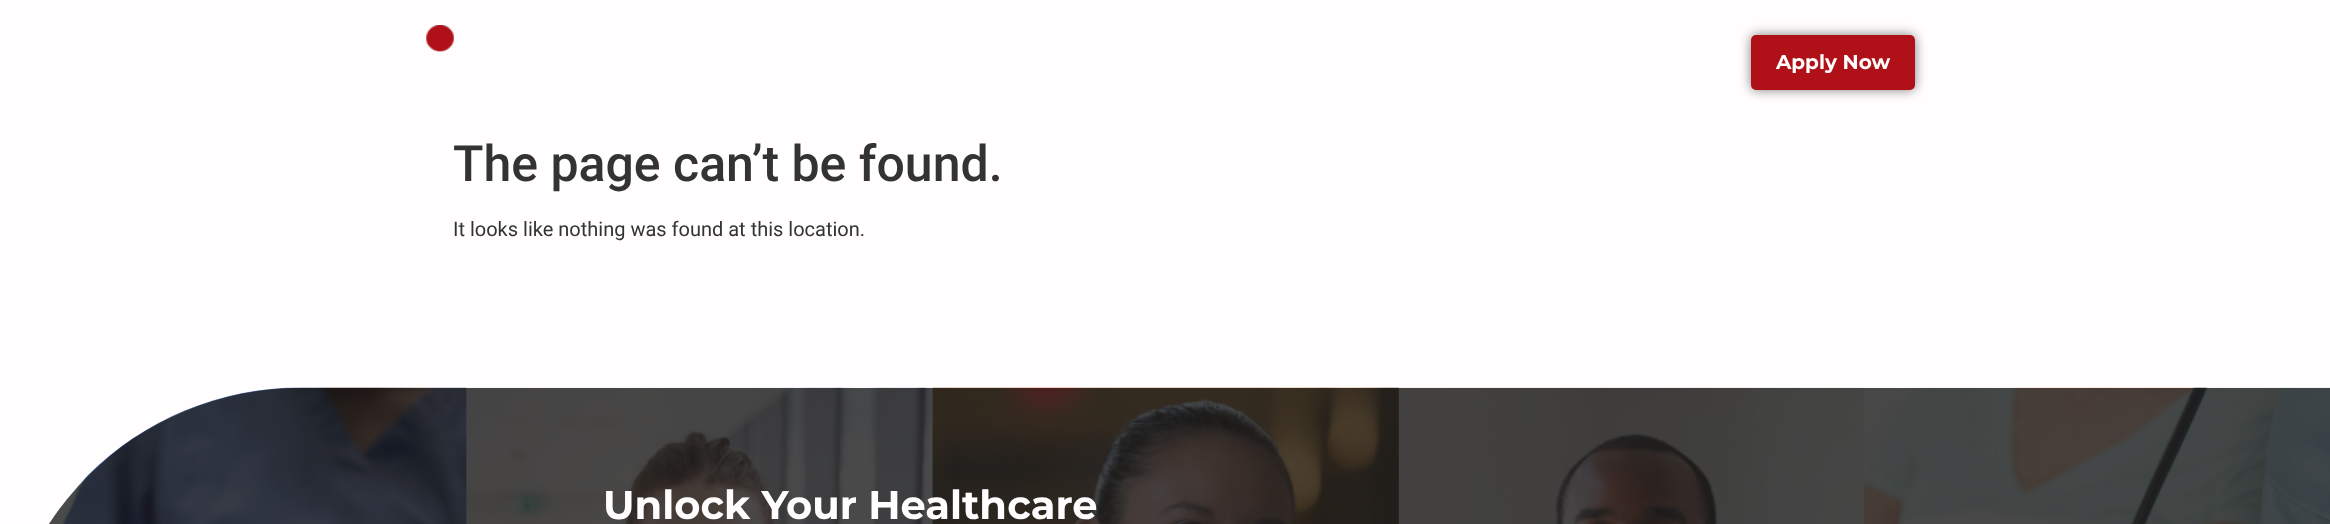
<svg xmlns="http://www.w3.org/2000/svg" width="2330" height="524">
<rect width="100%" height="100%" fill="#fffdfd"/>
<image x="426" y="25" width="28" height="27" href="media/1.png"/>
<rect x="1751" y="35" width="164" height="55" rx="5" fill="#00000080" filter="blur(6px)"/>
<rect x="1751" y="35" width="164" height="55" rx="5" fill="#b01119"/>
<text x="1776" y="69" style="font-family:Montserrat;font-size:20px;font-weight:bold;fill:#fffdfd">Apply Now</text>
<text x="453" y="181" style="font-family:Roboto;font-size:50px;font-weight:500;fill:#333">The page can’t be found.</text>
<text x="453" y="236" style="font-family:Roboto;font-size:20px;fill:#333">It looks like nothing was found at this location.</text>
<image x="59" y="387" width="2271" height="137" href="media/2.png"/>
<path d="M300 388h2030v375h-2330v-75c0-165.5 134.5-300 300-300z" fill="#1d1d1dcc"/>
<text x="603" y="519" style="font-family:Montserrat;font-size:40px;font-weight:bold;fill:#fffdfd">Unlock Your Healthcare</text>
</svg>
